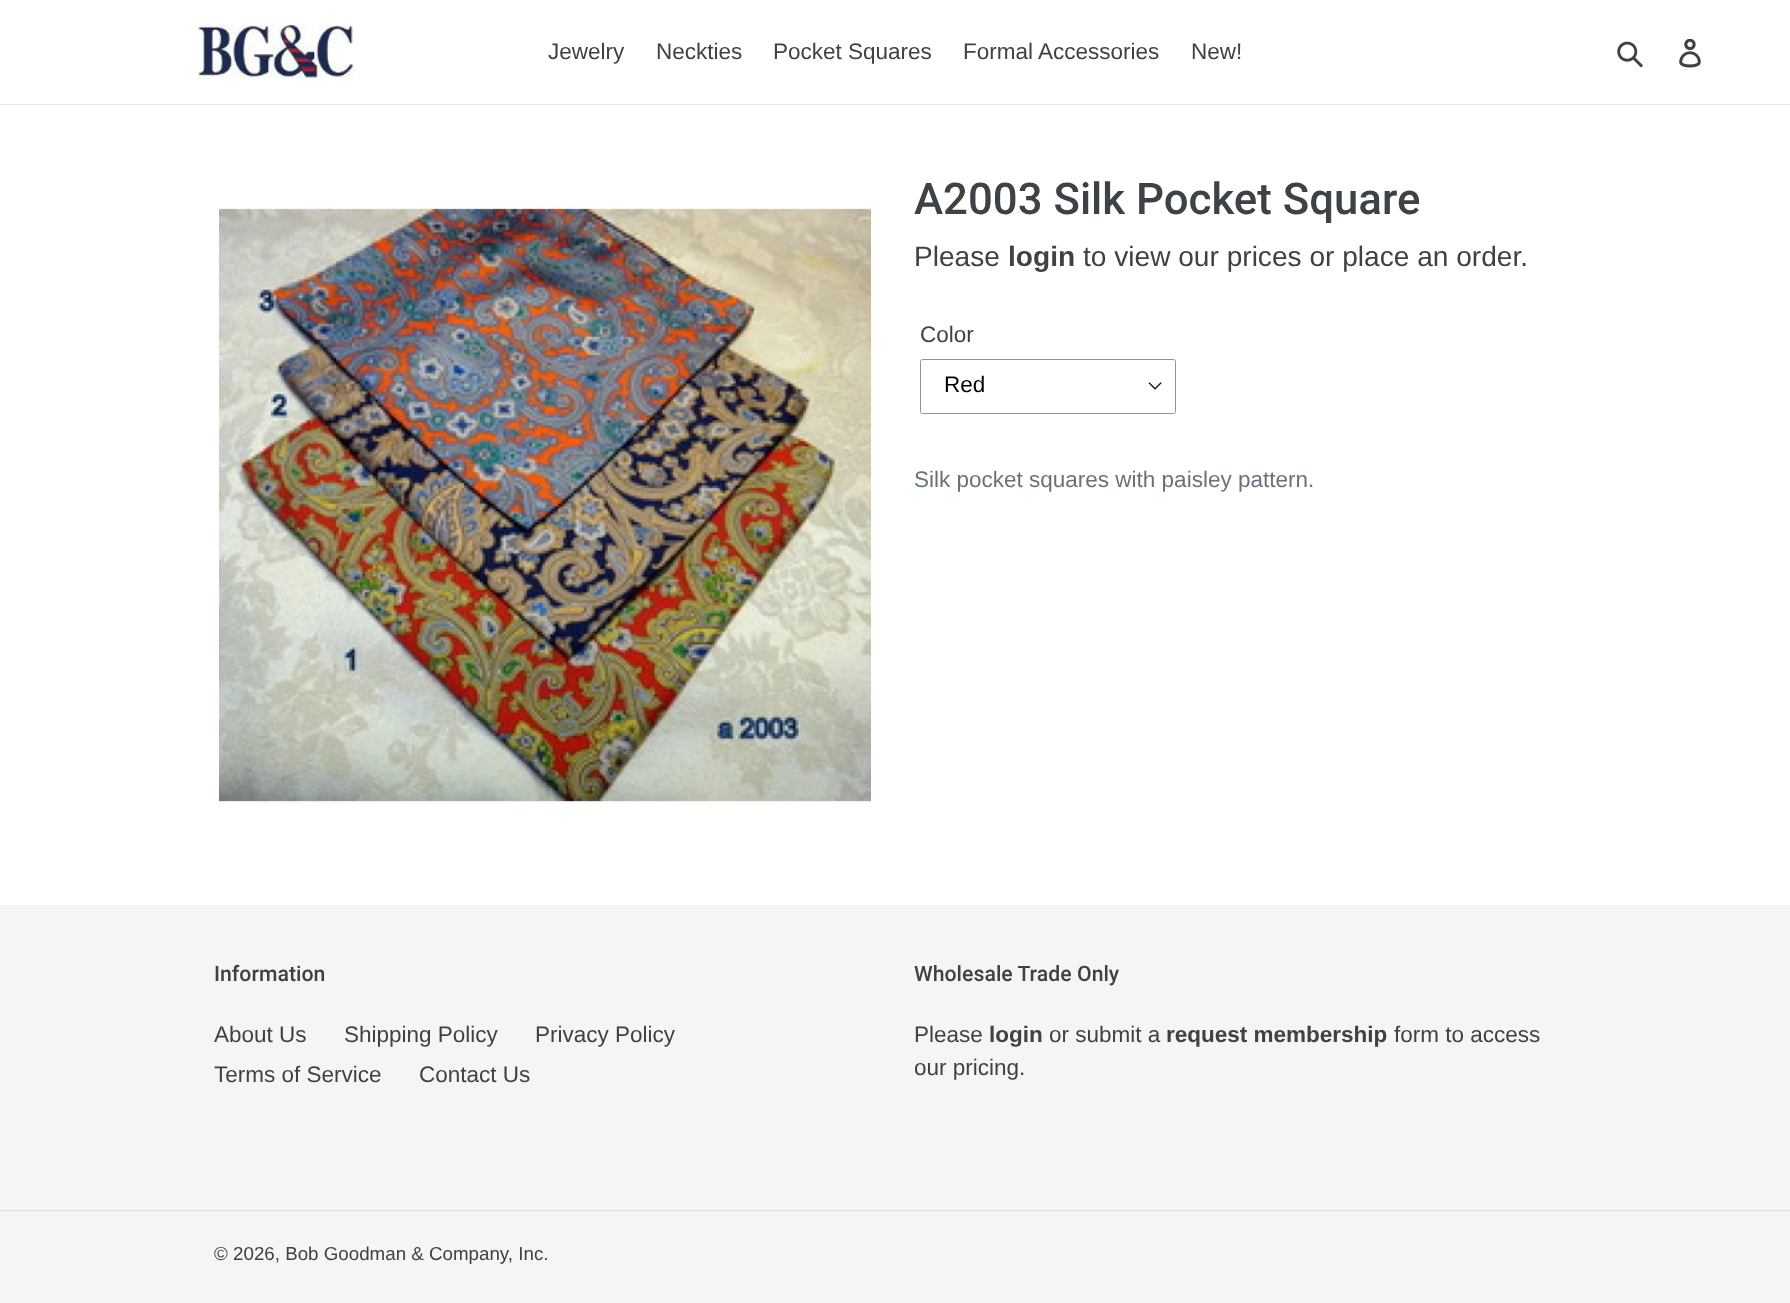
<svg xmlns="http://www.w3.org/2000/svg" width="1790" height="1303">
<rect width="100%" height="100%" fill="#fff"/>
<rect y="104" width="1790" height="1" fill="#e8e9eb"/>
<image x="197" y="25" width="157" height="54" href="media/1.png"/>
<text x="548" y="59" style="font-family:Arimo;font-size:22.5px;fill:#3d4246">Jewelry</text>
<text x="656" y="59" style="font-family:Arimo;font-size:22.5px;fill:#3d4246">Neckties</text>
<text x="773" y="59" style="font-family:Arimo;font-size:22.5px;fill:#3d4246">Pocket Squares</text>
<text x="963" y="59" style="font-family:Arimo;font-size:22.5px;fill:#3d4246">Formal Accessories</text>
<text x="1191" y="59" style="font-family:Arimo;font-size:22.5px;fill:#3d4246">New!</text>
<image x="1617" y="41" width="26" height="27" href="media/2.png"/>
<image x="1679" y="39" width="22" height="29" href="media/3.png"/>
<image x="219" y="207" width="652" height="596" href="media/4.png"/>
<text x="914" y="214" style="font-family:Roboto;font-size:43.75px;font-weight:500;fill:#3d4246">A2003 Silk Pocket Square</text>
<text x="914" y="266" style="font-family:Arimo;font-size:28.1px;fill:#3d4246">Please</text>
<text x="1008" y="266" style="font-family:Arimo;font-size:28.1px;font-weight:bold;fill:#3d4246">login</text>
<text x="1083" y="266" style="font-family:Arimo;font-size:28.1px;fill:#3d4246">to view our prices or place an order.</text>
<text x="920" y="342" style="font-family:Arimo;font-size:22.5px;fill:#3d4246">Color</text>
<image x="1148" y="382" width="14" height="8" href="media/5.png"/>
<rect x="920.5" y="359.5" width="255" height="54" rx="2" fill="none" stroke="#949494"/>
<text x="944" y="392" style="font-family:Arimo;font-size:22.5px;fill:#000">Red</text>
<text x="914" y="487" style="font-family:Arimo;font-size:22.5px;fill:#69727b">Silk pocket squares with paisley pattern.</text>
<rect y="905" width="1790" height="398" fill="#f5f5f5"/>
<text x="214" y="981" style="font-family:Roboto;font-size:21.25px;font-weight:500;fill:#3d4246">Information</text>
<text x="214" y="1042" style="font-family:Arimo;font-size:22.5px;fill:#3d4246">About Us</text>
<text x="344" y="1042" style="font-family:Arimo;font-size:22.5px;fill:#3d4246">Shipping Policy</text>
<text x="535" y="1042" style="font-family:Arimo;font-size:22.5px;fill:#3d4246">Privacy Policy</text>
<text x="214" y="1082" style="font-family:Arimo;font-size:22.5px;fill:#3d4246">Terms of Service</text>
<text x="419" y="1082" style="font-family:Arimo;font-size:22.5px;fill:#3d4246">Contact Us</text>
<text x="914" y="981" style="font-family:Roboto;font-size:21.25px;font-weight:500;fill:#3d4246">Wholesale Trade Only</text>
<text x="914" y="1042" style="font-family:Arimo;font-size:22.5px;fill:#3d4246">Please</text>
<text x="989" y="1042" style="font-family:Arimo;font-size:22.5px;font-weight:bold;fill:#3d4246">login</text>
<text x="1049" y="1042" style="font-family:Arimo;font-size:22.5px;fill:#3d4246">or submit a</text>
<text x="1166" y="1042" style="font-family:Arimo;font-size:22.5px;font-weight:bold;fill:#3d4246">request membership</text>
<text x="1394" y="1042" style="font-family:Arimo;font-size:22.5px;fill:#3d4246">form to access</text>
<text x="914" y="1075" style="font-family:Arimo;font-size:22.5px;fill:#3d4246">our pricing.</text>
<rect y="1210" width="1790" height="1" fill="#dcdcdc"/>
<text x="214" y="1260" style="font-family:Arimo;font-size:18.75px;fill:#3d4246">© 2026, Bob Goodman &amp; Company, Inc.</text>
</svg>
